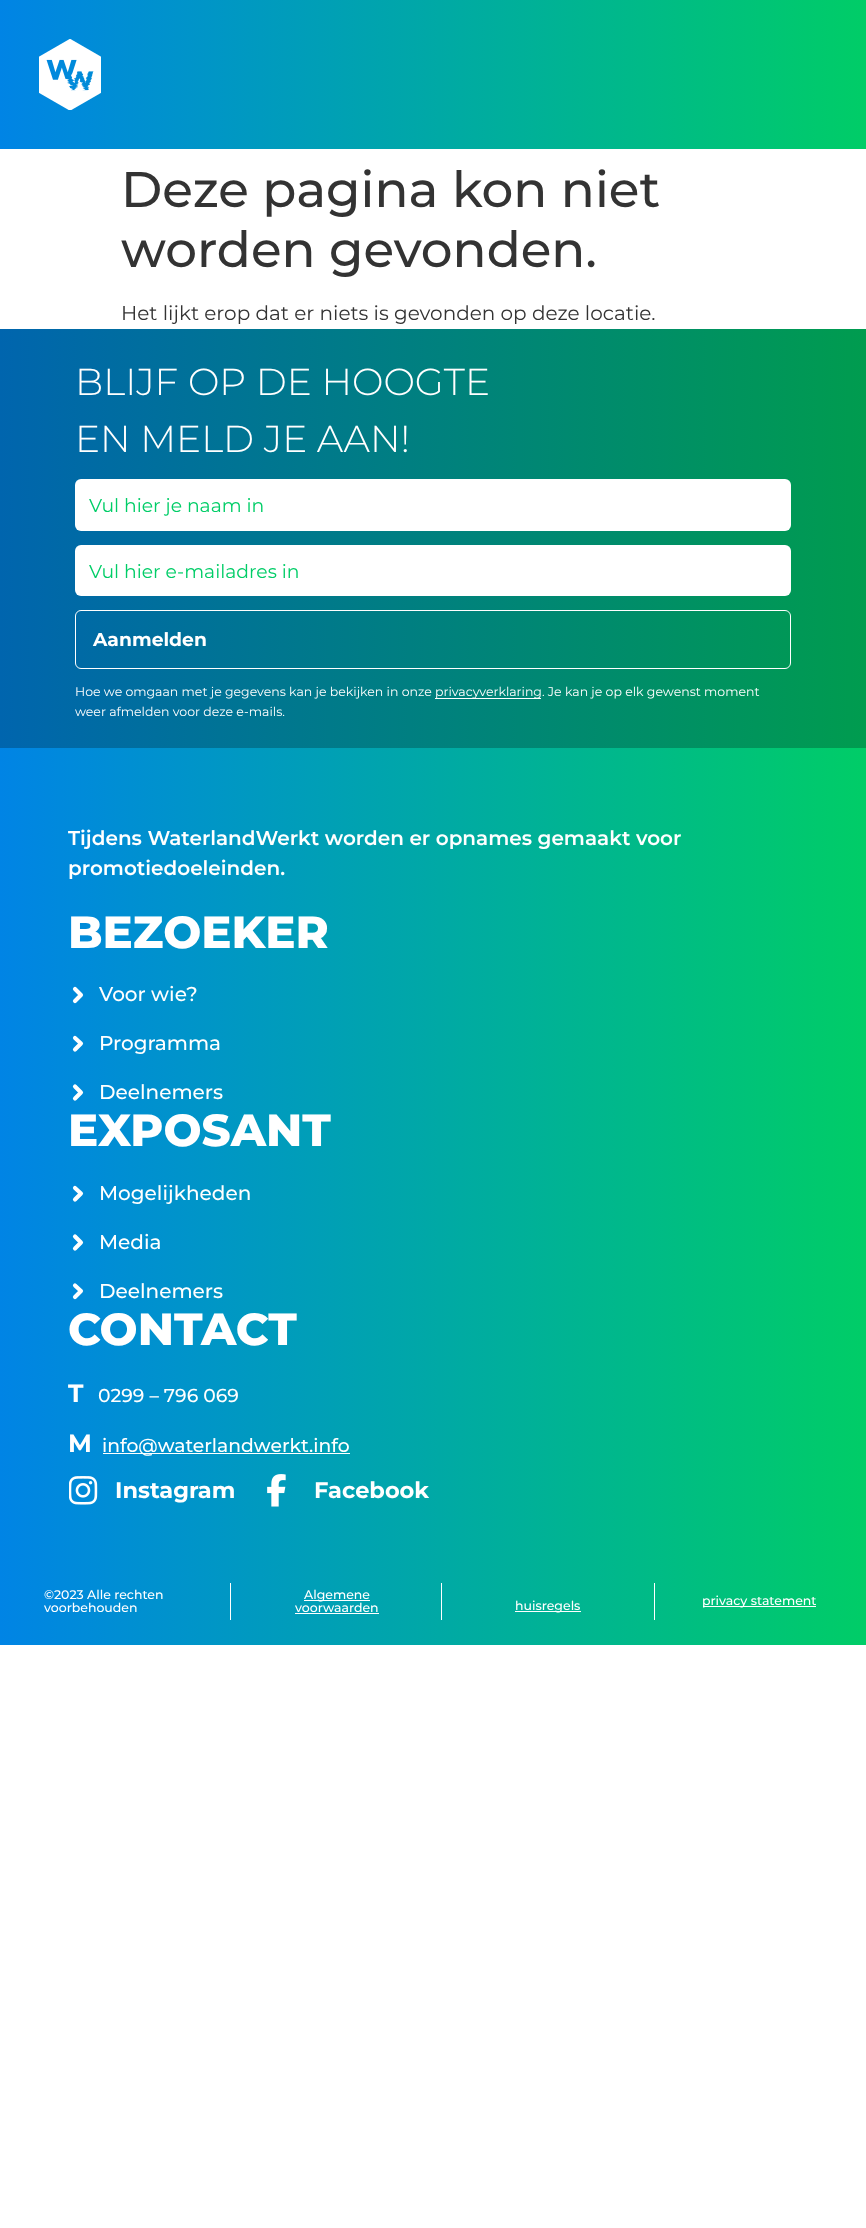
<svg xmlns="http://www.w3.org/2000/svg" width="866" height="2228">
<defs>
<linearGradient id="g1" gradientUnits="userSpaceOnUse" x1="0" y1="74" x2="866" y2="74"><stop offset="0" stop-color="#0084e5"/><stop offset="1" stop-color="#00cd67"/></linearGradient>
<linearGradient id="g2" gradientUnits="userSpaceOnUse" x1="0" y1="987" x2="866" y2="987"><stop offset="0" stop-color="#0084e5"/><stop offset="1" stop-color="#00cd67"/></linearGradient>
<linearGradient id="g3" gradientUnits="userSpaceOnUse" x1="0" y1="987" x2="866" y2="987"><stop offset="0" stop-color="#0065ae"/><stop offset="1" stop-color="#009c4f"/></linearGradient>
</defs>
<rect width="100%" height="100%" fill="#fff"/>
<rect width="866" height="149" fill="url(#g1)"/>
<image x="39" y="39" width="62" height="71" href="media/1.png"/>
<text x="121" y="207" style="font-family:Montserrat;font-size:50px;font-weight:500;fill:#333">Deze pagina kon niet</text>
<text x="121" y="267" style="font-family:Montserrat;font-size:50px;font-weight:500;fill:#333">worden gevonden.</text>
<text x="121" y="320" style="font-family:Montserrat;font-size:20px;fill:#333">Het lijkt erop dat er niets is gevonden op deze locatie.</text>
<rect y="748" width="866" height="897" fill="url(#g2)"/>
<rect y="329" width="866" height="419" fill="url(#g3)"/>
<text x="75" y="395" style="font-family:Montserrat;font-size:37.5px;font-weight:300;fill:#fff">BLIJF OP DE HOOGTE</text>
<text x="75" y="452" style="font-family:Montserrat;font-size:37.5px;font-weight:300;fill:#fff">EN MELD JE AAN!</text>
<rect x="75" y="479" width="716" height="52" rx="6" fill="#fff"/>
<text x="89" y="512" style="font-family:Montserrat;font-size:18.75px;fill:#00cd67">Vul hier je naam in</text>
<rect x="75" y="545" width="716" height="51" rx="6" fill="#fff"/>
<text x="89" y="578" style="font-family:Montserrat;font-size:18.75px;fill:#00cd67">Vul hier e-mailadres in</text>
<rect x="75.5" y="610.5" width="715" height="58" rx="5.5" fill="none" stroke="#fff"/>
<text x="93" y="646" style="font-family:Montserrat;font-size:18.75px;font-weight:bold;fill:#fff">Aanmelden</text>
<text x="75" y="696" style="font-family:Montserrat;font-size:12.5px;fill:#fff">Hoe we omgaan met je gegevens kan je bekijken in onze</text>
<rect x="435" y="698" width="106" height="1" fill="#fff"/>
<text x="435" y="696" style="font-family:Montserrat;font-size:12.5px;fill:#fff">privacyverklaring. Je kan je op elk gewenst moment</text>
<text x="75" y="716" style="font-family:Montserrat;font-size:12.5px;fill:#fff">weer afmelden voor deze e-mails.</text>
<text x="68" y="845" style="font-family:Montserrat;font-size:20px;font-weight:600;fill:#fff">Tijdens WaterlandWerkt worden er opnames gemaakt voor</text>
<text x="68" y="875" style="font-family:Montserrat;font-size:20px;font-weight:600;fill:#fff">promotiedoeleinden.</text>
<text x="68" y="948" style="font-family:Montserrat;font-size:45px;font-weight:800;fill:#fff">BEZOEKER</text>
<path d="M75 1001l6-6l-6-6" fill="none" stroke="#fff" stroke-width="4.1" stroke-linecap="round" stroke-linejoin="round"/>
<text x="99" y="1001" style="font-family:Montserrat;font-size:20px;font-weight:500;fill:#fff">Voor wie?</text>
<path d="M75 1049.5l6-6l-6-5.5" fill="none" stroke="#fff" stroke-width="4.1" stroke-linecap="round" stroke-linejoin="round"/>
<text x="99" y="1050" style="font-family:Montserrat;font-size:20px;font-weight:500;fill:#fff">Programma</text>
<path d="M75 1098.5l6-6l-6-6" fill="none" stroke="#fff" stroke-width="4.1" stroke-linecap="round" stroke-linejoin="round"/>
<text x="99" y="1099" style="font-family:Montserrat;font-size:20px;font-weight:500;fill:#fff">Deelnemers</text>
<text x="68" y="1146" style="font-family:Montserrat;font-size:45px;font-weight:800;fill:#fff">EXPOSANT</text>
<path d="M75 1199.5l6-6l-6-5.5" fill="none" stroke="#fff" stroke-width="4.1" stroke-linecap="round" stroke-linejoin="round"/>
<text x="99" y="1200" style="font-family:Montserrat;font-size:20px;font-weight:500;fill:#fff">Mogelijkheden</text>
<path d="M75 1248.5l6-6l-6-6" fill="none" stroke="#fff" stroke-width="4.1" stroke-linecap="round" stroke-linejoin="round"/>
<text x="99" y="1249" style="font-family:Montserrat;font-size:20px;font-weight:500;fill:#fff">Media</text>
<path d="M75 1297l6-6l-6-5.5" fill="none" stroke="#fff" stroke-width="4.1" stroke-linecap="round" stroke-linejoin="round"/>
<text x="99" y="1298" style="font-family:Montserrat;font-size:20px;font-weight:500;fill:#fff">Deelnemers</text>
<text x="68" y="1345" style="font-family:Montserrat;font-size:45px;font-weight:800;fill:#fff">CONTACT</text>
<text x="68" y="1402" style="font-family:Montserrat;font-size:25px;font-weight:bold;fill:#fff">T</text>
<text x="98" y="1402" style="font-family:Montserrat;font-size:18.75px;font-weight:500;fill:#fff">0299 – 796 069</text>
<text x="68" y="1452" style="font-family:Montserrat;font-size:25px;font-weight:bold;fill:#fff">M</text>
<rect x="103" y="1453" width="247" height="1" fill="#fff"/>
<text x="102" y="1452" style="font-family:Montserrat;font-size:18.75px;font-weight:500;fill:#fff">info@waterlandwerkt.info</text>
<image x="69" y="1476" width="29" height="29" href="media/2.png"/>
<text x="115" y="1498" style="font-family:Montserrat;font-size:22.5px;font-weight:bold;fill:#fff">Instagram</text>
<image x="267" y="1474" width="19" height="33" href="media/3.png"/>
<text x="314" y="1498" style="font-family:Montserrat;font-size:22.5px;font-weight:bold;fill:#fff">Facebook</text>
<text x="44" y="1599" style="font-family:Montserrat;font-size:12.5px;font-weight:500;fill:#fff">©2023 Alle rechten</text>
<text x="44" y="1612" style="font-family:Montserrat;font-size:12.5px;font-weight:500;fill:#fff">voorbehouden</text>
<rect x="230" y="1583" width="1" height="37" fill="#fff"/>
<rect x="304" y="1600" width="66" height="1" fill="#fff"/>
<text x="304" y="1599" style="font-family:Montserrat;font-size:12.5px;font-weight:500;fill:#fff">Algemene</text>
<text x="295" y="1612" style="font-family:Montserrat;font-size:12.5px;font-weight:500;fill:#fff">voorwaarden</text>
<rect x="295" y="1613" width="84" height="1" fill="#fff"/>
<rect x="441" y="1583" width="1" height="37" fill="#fff"/>
<rect x="515" y="1611" width="66" height="1" fill="#fff"/>
<text x="515" y="1610" style="font-family:Montserrat;font-size:12.5px;font-weight:500;fill:#fff">huisregels</text>
<rect x="654" y="1583" width="1" height="37" fill="#fff"/>
<rect x="703" y="1606" width="113" height="1" fill="#fff"/>
<text x="702" y="1605" style="font-family:Montserrat;font-size:12.5px;font-weight:500;fill:#fff">privacy statement</text>
</svg>
